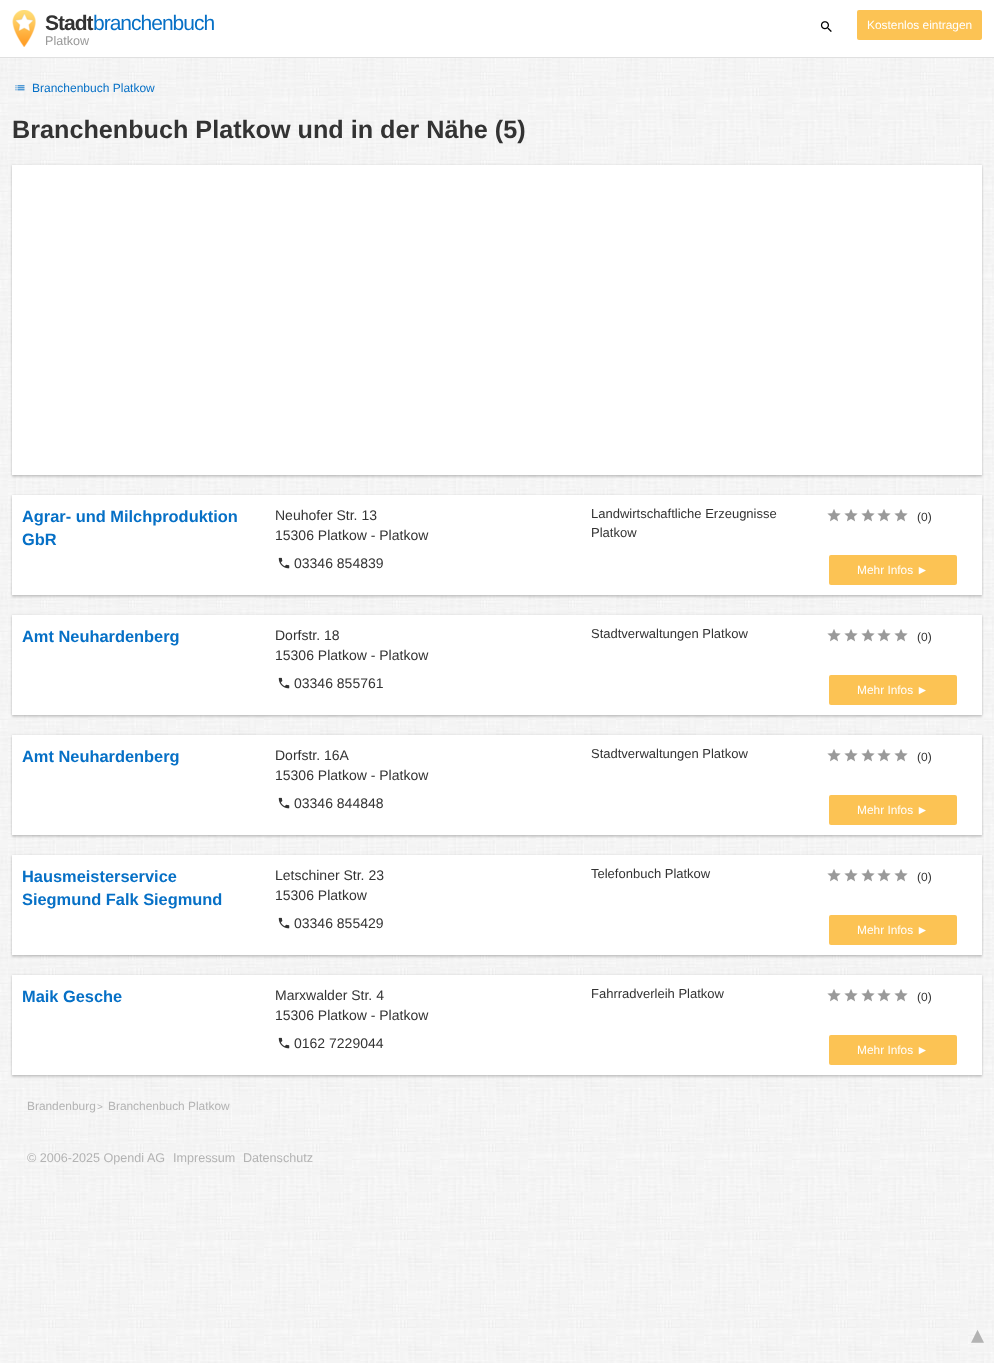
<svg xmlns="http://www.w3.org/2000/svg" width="994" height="1363">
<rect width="100%" height="100%" fill="#fff"/>
<image x="0" y="58" width="994" height="1305" href="media/1.png"/>
<rect y="57" width="994" height="1" fill="#e0e0e0"/>
<image x="12" y="10" width="24" height="37" href="media/2.png"/>
<text x="45" y="30" style="font-family:Liberation Sans;font-size:21px;font-weight:bold;letter-spacing:-1px;fill:#333">Stadt</text>
<text x="93" y="30" style="font-family:Liberation Sans;font-size:21px;letter-spacing:-1px;fill:#0670c6">branchenbuch</text>
<text x="45" y="45" style="font-family:Liberation Sans;font-size:12.6px;fill:#999">Platkow</text>
<image x="820" y="21" width="12" height="11" href="media/3.png"/>
<rect x="857" y="10" width="125" height="30" rx="2" fill="#fcc354"/>
<text x="867" y="29" style="font-family:Liberation Sans;font-size:11.9px;fill:#fff">Kostenlos eintragen</text>
<image x="15" y="85" width="10" height="6" href="media/4.png"/>
<text x="32" y="92" style="font-family:Liberation Sans;font-size:12px;fill:#0670c6">Branchenbuch Platkow</text>
<text x="12" y="138" style="font-family:Liberation Sans;font-size:25.2px;font-weight:bold;fill:#333">Branchenbuch Platkow und in der Nähe (5)</text>
<rect x="12" y="165" width="970" height="310" fill="#0000001f" filter="blur(1px)"/>
<rect x="12" y="167" width="970" height="310" fill="#00000029" filter="blur(1px)"/>
<rect x="12" y="165" width="970" height="310" fill="#fff"/>
<rect x="12" y="495" width="970" height="100" fill="#0000001f" filter="blur(1px)"/>
<rect x="12" y="497" width="970" height="100" fill="#00000029" filter="blur(1px)"/>
<rect x="12" y="495" width="970" height="100" fill="#fff"/>
<text x="22" y="522" style="font-family:Liberation Sans;font-size:16.4px;font-weight:bold;fill:#0670c6">Agrar- und Milchproduktion</text>
<text x="22" y="545" style="font-family:Liberation Sans;font-size:16.4px;font-weight:bold;fill:#0670c6">GbR</text>
<text x="275" y="520" style="font-family:Liberation Sans;font-size:14px;fill:#333">Neuhofer Str. 13</text>
<text x="275" y="540" style="font-family:Liberation Sans;font-size:14px;fill:#333">15306 Platkow - Platkow</text>
<image x="278" y="557" width="12" height="12" href="media/5.png"/>
<text x="294" y="568" style="font-family:Liberation Sans;font-size:14px;fill:#333">03346 854839</text>
<text x="591" y="518" style="font-family:Liberation Sans;font-size:13px;fill:#333">Landwirtschaftliche Erzeugnisse</text>
<text x="591" y="537" style="font-family:Liberation Sans;font-size:13px;fill:#333">Platkow</text>
<image x="827" y="509" width="14" height="13" href="media/6.png"/>
<image x="844" y="509" width="14" height="13" href="media/6.png"/>
<image x="861" y="509" width="14" height="13" href="media/6.png"/>
<image x="877" y="509" width="14" height="13" href="media/6.png"/>
<image x="894" y="509" width="14" height="13" href="media/6.png"/>
<text x="917" y="521" style="font-family:Liberation Sans;font-size:12px;fill:#333">(0)</text>
<rect x="829" y="555" width="128" height="30" rx="2" fill="#fcc354"/>
<text x="857" y="574" style="font-family:Liberation Sans;font-size:11.9px;fill:#fff">Mehr Infos ►</text>
<rect x="12" y="615" width="970" height="100" fill="#0000001f" filter="blur(1px)"/>
<rect x="12" y="617" width="970" height="100" fill="#00000029" filter="blur(1px)"/>
<rect x="12" y="615" width="970" height="100" fill="#fff"/>
<text x="22" y="642" style="font-family:Liberation Sans;font-size:16.4px;font-weight:bold;fill:#0670c6">Amt Neuhardenberg</text>
<text x="275" y="640" style="font-family:Liberation Sans;font-size:14px;fill:#333">Dorfstr. 18</text>
<text x="275" y="660" style="font-family:Liberation Sans;font-size:14px;fill:#333">15306 Platkow - Platkow</text>
<image x="278" y="677" width="12" height="12" href="media/5.png"/>
<text x="294" y="688" style="font-family:Liberation Sans;font-size:14px;fill:#333">03346 855761</text>
<text x="591" y="638" style="font-family:Liberation Sans;font-size:13px;fill:#333">Stadtverwaltungen Platkow</text>
<image x="827" y="629" width="14" height="13" href="media/6.png"/>
<image x="844" y="629" width="14" height="13" href="media/6.png"/>
<image x="861" y="629" width="14" height="13" href="media/6.png"/>
<image x="877" y="629" width="14" height="13" href="media/6.png"/>
<image x="894" y="629" width="14" height="13" href="media/6.png"/>
<text x="917" y="641" style="font-family:Liberation Sans;font-size:12px;fill:#333">(0)</text>
<rect x="829" y="675" width="128" height="30" rx="2" fill="#fcc354"/>
<text x="857" y="694" style="font-family:Liberation Sans;font-size:11.9px;fill:#fff">Mehr Infos ►</text>
<rect x="12" y="735" width="970" height="100" fill="#0000001f" filter="blur(1px)"/>
<rect x="12" y="737" width="970" height="100" fill="#00000029" filter="blur(1px)"/>
<rect x="12" y="735" width="970" height="100" fill="#fff"/>
<text x="22" y="762" style="font-family:Liberation Sans;font-size:16.4px;font-weight:bold;fill:#0670c6">Amt Neuhardenberg</text>
<text x="275" y="760" style="font-family:Liberation Sans;font-size:14px;fill:#333">Dorfstr. 16A</text>
<text x="275" y="780" style="font-family:Liberation Sans;font-size:14px;fill:#333">15306 Platkow - Platkow</text>
<image x="278" y="797" width="12" height="12" href="media/5.png"/>
<text x="294" y="808" style="font-family:Liberation Sans;font-size:14px;fill:#333">03346 844848</text>
<text x="591" y="758" style="font-family:Liberation Sans;font-size:13px;fill:#333">Stadtverwaltungen Platkow</text>
<image x="827" y="749" width="14" height="13" href="media/6.png"/>
<image x="844" y="749" width="14" height="13" href="media/6.png"/>
<image x="861" y="749" width="14" height="13" href="media/6.png"/>
<image x="877" y="749" width="14" height="13" href="media/6.png"/>
<image x="894" y="749" width="14" height="13" href="media/6.png"/>
<text x="917" y="761" style="font-family:Liberation Sans;font-size:12px;fill:#333">(0)</text>
<rect x="829" y="795" width="128" height="30" rx="2" fill="#fcc354"/>
<text x="857" y="814" style="font-family:Liberation Sans;font-size:11.9px;fill:#fff">Mehr Infos ►</text>
<rect x="12" y="855" width="970" height="100" fill="#0000001f" filter="blur(1px)"/>
<rect x="12" y="857" width="970" height="100" fill="#00000029" filter="blur(1px)"/>
<rect x="12" y="855" width="970" height="100" fill="#fff"/>
<text x="22" y="882" style="font-family:Liberation Sans;font-size:16.4px;font-weight:bold;fill:#0670c6">Hausmeisterservice</text>
<text x="22" y="905" style="font-family:Liberation Sans;font-size:16.4px;font-weight:bold;fill:#0670c6">Siegmund Falk Siegmund</text>
<text x="275" y="880" style="font-family:Liberation Sans;font-size:14px;fill:#333">Letschiner Str. 23</text>
<text x="275" y="900" style="font-family:Liberation Sans;font-size:14px;fill:#333">15306 Platkow</text>
<image x="278" y="917" width="12" height="12" href="media/5.png"/>
<text x="294" y="928" style="font-family:Liberation Sans;font-size:14px;fill:#333">03346 855429</text>
<text x="591" y="878" style="font-family:Liberation Sans;font-size:13px;fill:#333">Telefonbuch Platkow</text>
<image x="827" y="869" width="14" height="13" href="media/6.png"/>
<image x="844" y="869" width="14" height="13" href="media/6.png"/>
<image x="861" y="869" width="14" height="13" href="media/6.png"/>
<image x="877" y="869" width="14" height="13" href="media/6.png"/>
<image x="894" y="869" width="14" height="13" href="media/6.png"/>
<text x="917" y="881" style="font-family:Liberation Sans;font-size:12px;fill:#333">(0)</text>
<rect x="829" y="915" width="128" height="30" rx="2" fill="#fcc354"/>
<text x="857" y="934" style="font-family:Liberation Sans;font-size:11.9px;fill:#fff">Mehr Infos ►</text>
<rect x="12" y="975" width="970" height="100" fill="#0000001f" filter="blur(1px)"/>
<rect x="12" y="977" width="970" height="100" fill="#00000029" filter="blur(1px)"/>
<rect x="12" y="975" width="970" height="100" fill="#fff"/>
<text x="22" y="1002" style="font-family:Liberation Sans;font-size:16.4px;font-weight:bold;fill:#0670c6">Maik Gesche</text>
<text x="275" y="1000" style="font-family:Liberation Sans;font-size:14px;fill:#333">Marxwalder Str. 4</text>
<text x="275" y="1020" style="font-family:Liberation Sans;font-size:14px;fill:#333">15306 Platkow - Platkow</text>
<image x="278" y="1037" width="12" height="12" href="media/5.png"/>
<text x="294" y="1048" style="font-family:Liberation Sans;font-size:14px;fill:#333">0162 7229044</text>
<text x="591" y="998" style="font-family:Liberation Sans;font-size:13px;fill:#333">Fahrradverleih Platkow</text>
<image x="827" y="989" width="14" height="13" href="media/6.png"/>
<image x="844" y="989" width="14" height="13" href="media/6.png"/>
<image x="861" y="989" width="14" height="13" href="media/6.png"/>
<image x="877" y="989" width="14" height="13" href="media/6.png"/>
<image x="894" y="989" width="14" height="13" href="media/6.png"/>
<text x="917" y="1001" style="font-family:Liberation Sans;font-size:12px;fill:#333">(0)</text>
<rect x="829" y="1035" width="128" height="30" rx="2" fill="#fcc354"/>
<text x="857" y="1054" style="font-family:Liberation Sans;font-size:11.9px;fill:#fff">Mehr Infos ►</text>
<text x="27" y="1110" style="font-family:Liberation Sans;font-size:11.9px;fill:#b3b3b3">Brandenburg</text>
<text x="97" y="1110" style="font-family:Liberation Sans;font-size:10px;fill:#b3b3b3">&gt;</text>
<text x="108" y="1110" style="font-family:Liberation Sans;font-size:11.9px;fill:#b3b3b3">Branchenbuch Platkow</text>
<text x="27" y="1162" style="font-family:Liberation Sans;font-size:12.6px;fill:#b3b3b3">© 2006-2025 Opendi AG</text>
<text x="173" y="1162" style="font-family:Liberation Sans;font-size:12.6px;fill:#b3b3b3">Impressum</text>
<text x="243" y="1162" style="font-family:Liberation Sans;font-size:12.6px;fill:#b3b3b3">Datenschutz</text>
<text x="971" y="1343" style="font-family:DejaVu Sans;font-size:26px;fill:#b3b3b3">▴</text>
</svg>
